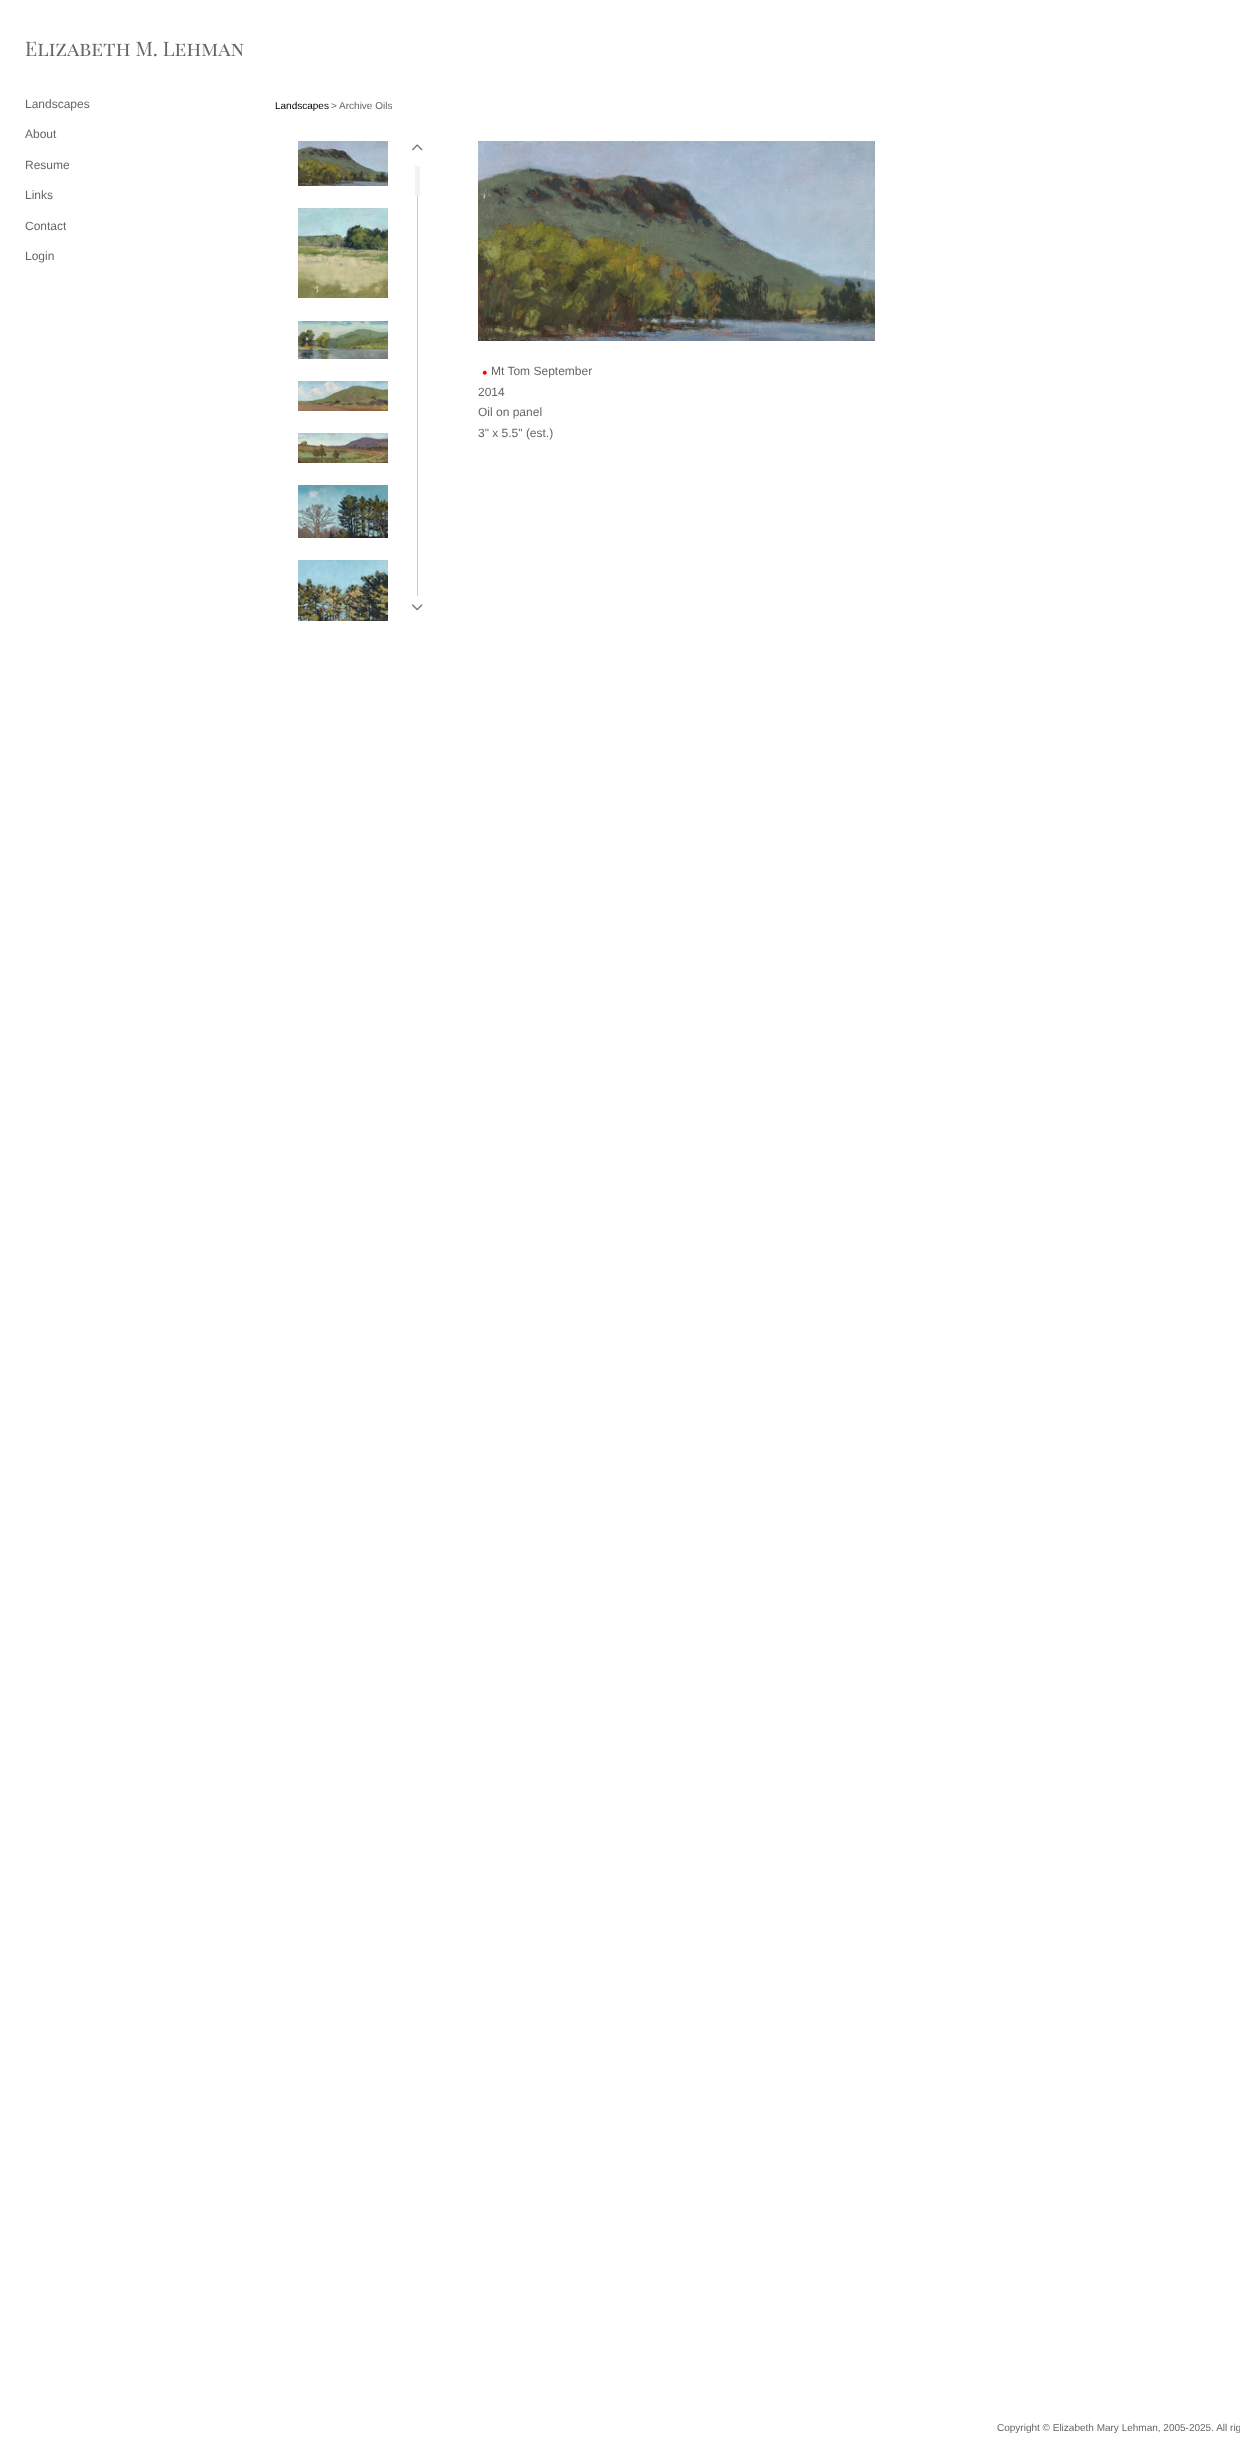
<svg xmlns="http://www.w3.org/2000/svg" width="1240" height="2452">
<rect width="100%" height="100%" fill="#fff"/>
<text x="25" y="56" style="font-family:Playfair Display SC;font-size:20px;fill:#666">Elizabeth M. Lehman</text>
<text x="25" y="108" style="font-family:Liberation Sans;font-size:12px;fill:#666">Landscapes</text>
<text x="25" y="138" style="font-family:Liberation Sans;font-size:12px;fill:#666">About</text>
<text x="25" y="169" style="font-family:Liberation Sans;font-size:12px;fill:#666">Resume</text>
<text x="25" y="199" style="font-family:Liberation Sans;font-size:12px;fill:#666">Links</text>
<text x="25" y="230" style="font-family:Liberation Sans;font-size:12px;fill:#666">Contact</text>
<text x="25" y="260" style="font-family:Liberation Sans;font-size:12px;fill:#666">Login</text>
<text x="275" y="109" style="font-family:Liberation Sans;font-size:10px;fill:#000">Landscapes</text>
<text x="331" y="109" style="font-family:Liberation Sans;font-size:10px;fill:#666">&gt; Archive Oils</text>
<image x="298" y="141" width="90" height="45" href="media/1.png"/>
<image x="298" y="208" width="90" height="90" href="media/2.png"/>
<image x="298" y="321" width="90" height="38" href="media/3.png"/>
<image x="298" y="381" width="90" height="30" href="media/4.png"/>
<image x="298" y="433" width="90" height="30" href="media/5.png"/>
<image x="298" y="485" width="90" height="53" href="media/6.png"/>
<image x="298" y="560" width="90" height="61" href="media/7.png"/>
<image x="412" y="144" width="11" height="7" href="media/8.png"/>
<rect x="415" y="166" width="5" height="30" fill="#f2f2f2"/>
<rect x="417" y="196" width="1" height="400" fill="#ccc"/>
<image x="412" y="604" width="11" height="7" href="media/9.png"/>
<image x="478" y="141" width="397" height="200" href="media/10.png"/>
<image x="482" y="370" width="5" height="5" href="media/11.png"/>
<text x="491" y="375" style="font-family:Liberation Sans;font-size:12px;fill:#666">Mt Tom September</text>
<text x="478" y="396" style="font-family:Liberation Sans;font-size:12px;fill:#666">2014</text>
<text x="478" y="416" style="font-family:Liberation Sans;font-size:12px;fill:#666">Oil on panel</text>
<text x="478" y="437" style="font-family:Liberation Sans;font-size:12px;fill:#666">3" x 5.5" (est.)</text>
<text x="997" y="2431" style="font-family:Liberation Sans;font-size:10px;fill:#666">Copyright © Elizabeth Mary Lehman, 2005-2025. All rig</text>
</svg>
